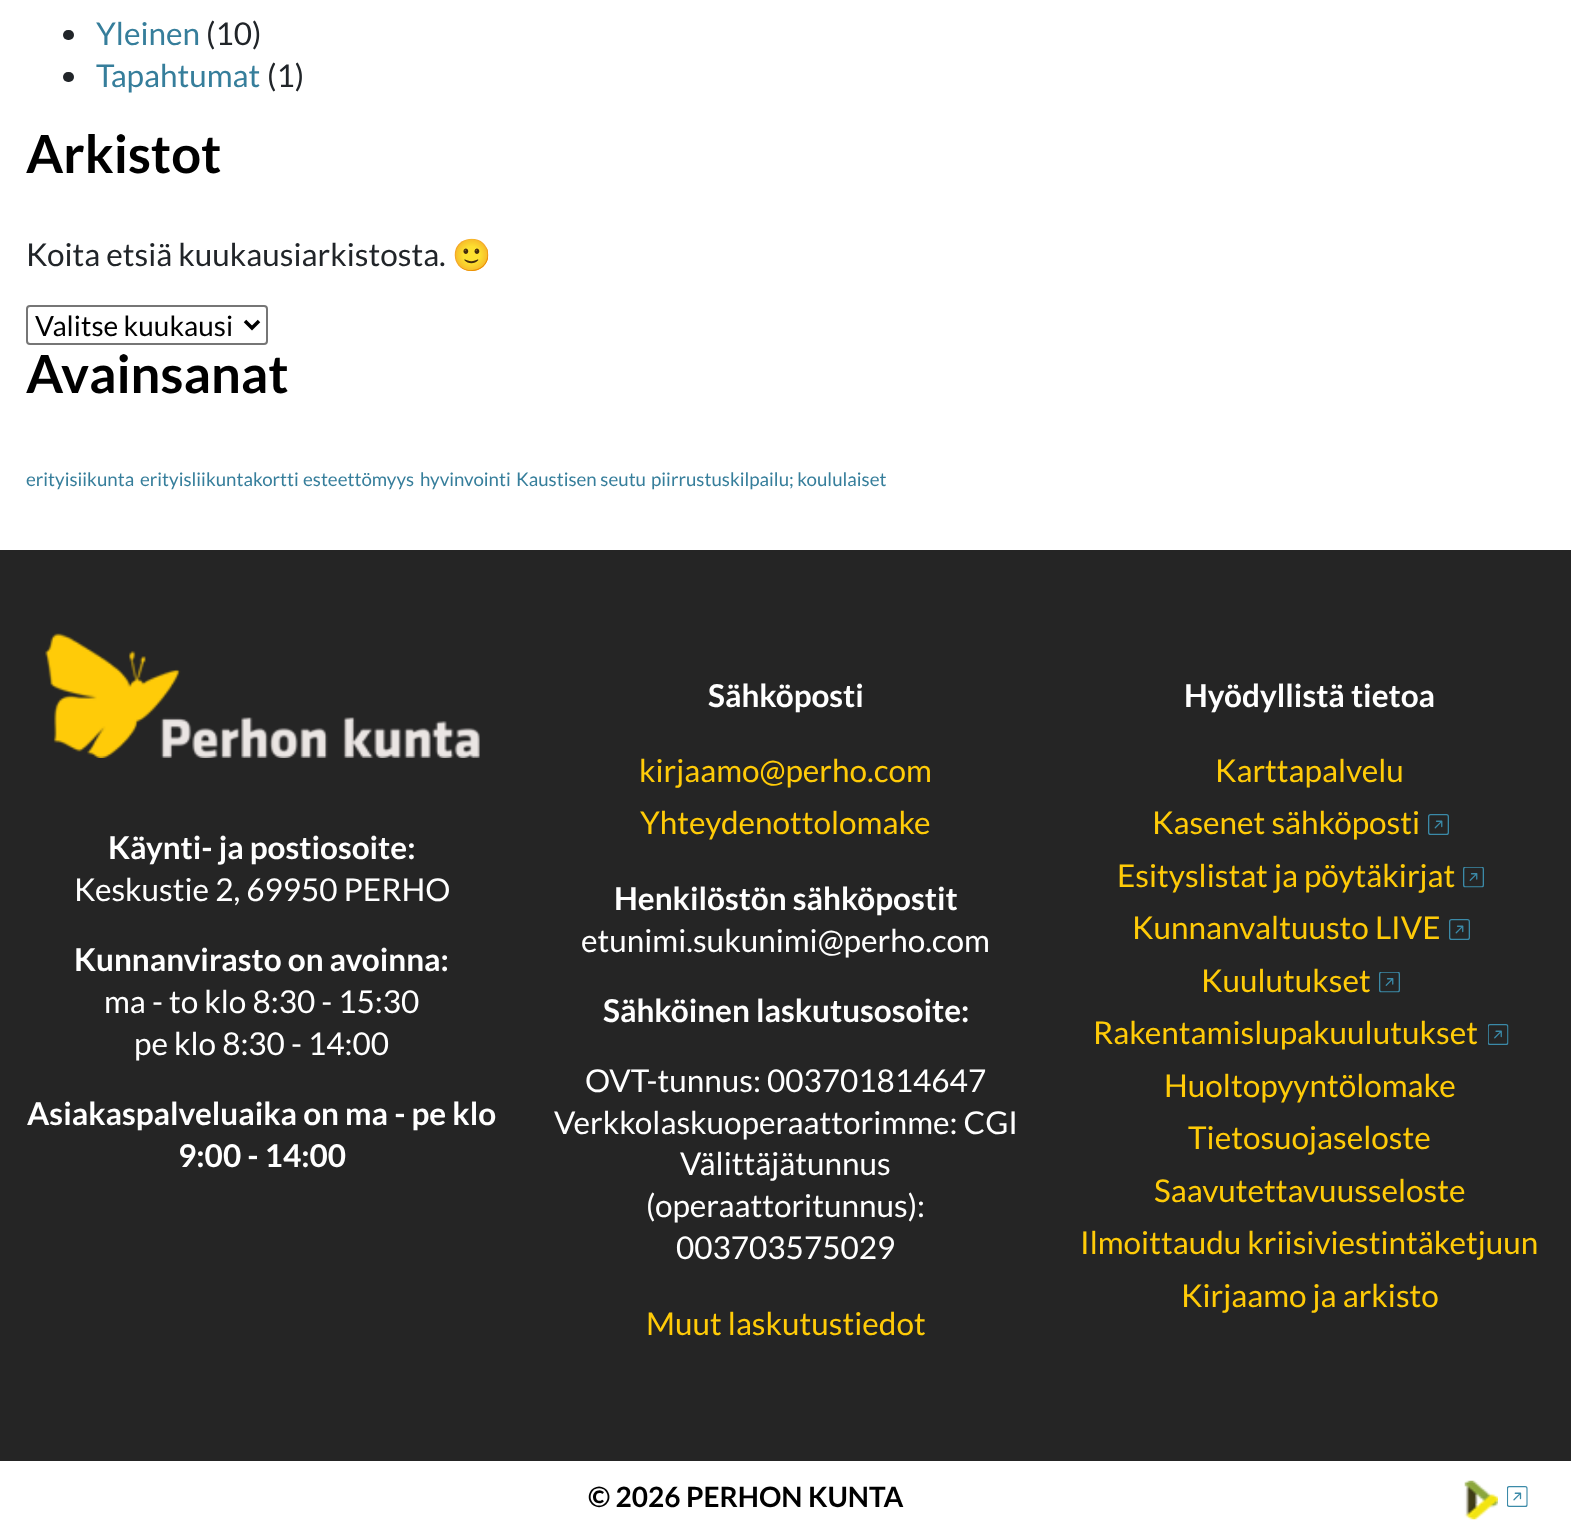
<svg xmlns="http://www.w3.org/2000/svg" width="1571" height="1530">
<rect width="100%" height="100%" fill="#fff"/>
<rect x="63" y="30" width="11" height="10" rx="5" fill="#212529"/>
<text x="96" y="45" style="font-family:Lato;font-size:31.5px;fill:#367e9b">Yleinen</text>
<text x="206" y="45" style="font-family:Lato;font-size:31.5px;fill:#212529">(10)</text>
<rect x="63" y="72" width="11" height="10" rx="5" fill="#212529"/>
<text x="96" y="87" style="font-family:Lato;font-size:31.5px;fill:#367e9b">Tapahtumat</text>
<text x="267" y="87" style="font-family:Lato;font-size:31.5px;fill:#212529">(1)</text>
<text x="26" y="173" style="font-family:Lato;font-size:52.5px;font-weight:bold;fill:#000">Arkistot</text>
<text x="26" y="266" style="font-family:Lato;font-size:31.5px;fill:#212529">Koita etsiä kuukausiarkistosta.</text>
<text x="452" y="266" style="font-family:Noto Color Emoji;font-size:31.5px;fill:#212529">🙂</text>
<rect x="27" y="306" width="240" height="38" rx="3" fill="none" stroke="#767676" stroke-width="2"/>
<path d="M245 321l7 7l7-7" fill="none" stroke="#000" stroke-width="3.5"/>
<text x="35" y="336" style="font-family:Lato;font-size:28px;fill:#000">Valitse kuukausi</text>
<text x="26" y="393" style="font-family:Lato;font-size:52.5px;font-weight:bold;fill:#000">Avainsanat</text>
<text x="26" y="486" style="font-family:Lato;font-size:18.7px;fill:#367e9b">erityisiikunta</text>
<text x="140" y="486" style="font-family:Lato;font-size:18.7px;fill:#367e9b">erityisliikuntakortti</text>
<text x="303" y="486" style="font-family:Lato;font-size:18.7px;fill:#367e9b">esteettömyys</text>
<text x="420" y="486" style="font-family:Lato;font-size:18.7px;fill:#367e9b">hyvinvointi</text>
<text x="516" y="486" style="font-family:Lato;font-size:18.7px;fill:#367e9b">Kaustisen seutu</text>
<text x="651" y="486" style="font-family:Lato;font-size:18.7px;fill:#367e9b">piirrustuskilpailu; koululaiset</text>
<rect y="550" width="1571" height="911" fill="#252525"/>
<image x="45" y="633" width="435" height="125" href="media/1.png"/>
<text x="108" y="859" style="font-family:Lato;font-size:31.5px;font-weight:bold;fill:#fff">Käynti- ja postiosoite:</text>
<text x="74" y="901" style="font-family:Lato;font-size:31.5px;fill:#fff">Keskustie 2, 69950 PERHO</text>
<text x="74" y="971" style="font-family:Lato;font-size:31.5px;font-weight:bold;fill:#fff">Kunnanvirasto on avoinna:</text>
<text x="104" y="1013" style="font-family:Lato;font-size:31.5px;fill:#fff">ma - to klo 8:30 - 15:30</text>
<text x="134" y="1055" style="font-family:Lato;font-size:31.5px;fill:#fff">pe klo 8:30 - 14:00</text>
<text x="27" y="1125" style="font-family:Lato;font-size:31.5px;font-weight:bold;fill:#fff">Asiakaspalveluaika on ma - pe klo</text>
<text x="178" y="1167" style="font-family:Lato;font-size:31.5px;font-weight:bold;fill:#fff">9:00 - 14:00</text>
<text x="708" y="707" style="font-family:Lato;font-size:31.5px;font-weight:bold;fill:#fff">Sähköposti</text>
<text x="639" y="782" style="font-family:Lato;font-size:31.5px;fill:#ffcb08">kirjaamo@perho.com</text>
<text x="640" y="834" style="font-family:Lato;font-size:31.5px;fill:#ffcb08">Yhteydenottolomake</text>
<text x="614" y="910" style="font-family:Lato;font-size:31.5px;font-weight:bold;fill:#fff">Henkilöstön sähköpostit</text>
<text x="581" y="952" style="font-family:Lato;font-size:31.5px;fill:#fff">etunimi.sukunimi@perho.com</text>
<text x="603" y="1022" style="font-family:Lato;font-size:31.5px;font-weight:bold;fill:#fff">Sähköinen laskutusosoite:</text>
<text x="585" y="1092" style="font-family:Lato;font-size:31.5px;fill:#fff">OVT-tunnus: 003701814647</text>
<text x="554" y="1134" style="font-family:Lato;font-size:31.5px;fill:#fff">Verkkolaskuoperaattorimme: CGI</text>
<text x="680" y="1175" style="font-family:Lato;font-size:31.5px;fill:#fff">Välittäjätunnus</text>
<text x="646" y="1217" style="font-family:Lato;font-size:31.5px;fill:#fff">(operaattoritunnus):</text>
<text x="676" y="1259" style="font-family:Lato;font-size:31.5px;fill:#fff">003703575029</text>
<text x="646" y="1335" style="font-family:Lato;font-size:31.5px;fill:#ffcb08">Muut laskutustiedot</text>
<text x="1184" y="707" style="font-family:Lato;font-size:31.5px;font-weight:bold;fill:#fff">Hyödyllistä tietoa</text>
<text x="1215" y="782" style="font-family:Lato;font-size:31.5px;fill:#ffcb08">Karttapalvelu</text>
<text x="1152" y="834" style="font-family:Lato;font-size:31.5px;fill:#ffcb08">Kasenet sähköposti</text>
<image x="1428" y="814" width="21" height="21" href="media/2.png"/>
<text x="1117" y="887" style="font-family:Lato;font-size:31.5px;fill:#ffcb08">Esityslistat ja pöytäkirjat</text>
<image x="1463" y="867" width="21" height="21" href="media/3.png"/>
<text x="1132" y="939" style="font-family:Lato;font-size:31.5px;fill:#ffcb08">Kunnanvaltuusto LIVE</text>
<image x="1449" y="919" width="21" height="21" href="media/4.png"/>
<text x="1201" y="992" style="font-family:Lato;font-size:31.5px;fill:#ffcb08">Kuulutukset</text>
<image x="1379" y="972" width="21" height="21" href="media/3.png"/>
<text x="1093" y="1044" style="font-family:Lato;font-size:31.5px;fill:#ffcb08">Rakentamislupakuulutukset</text>
<image x="1488" y="1024" width="21" height="21" href="media/5.png"/>
<text x="1164" y="1097" style="font-family:Lato;font-size:31.5px;fill:#ffcb08">Huoltopyyntölomake</text>
<text x="1188" y="1149" style="font-family:Lato;font-size:31.5px;fill:#ffcb08">Tietosuojaseloste</text>
<text x="1154" y="1202" style="font-family:Lato;font-size:31.5px;fill:#ffcb08">Saavutettavuusseloste</text>
<text x="1080" y="1254" style="font-family:Lato;font-size:31.5px;fill:#ffcb08">Ilmoittaudu kriisiviestintäketjuun</text>
<text x="1181" y="1307" style="font-family:Lato;font-size:31.5px;fill:#ffcb08">Kirjaamo ja arkisto</text>
<text x="588" y="1507" style="font-family:Lato;font-size:28px;font-weight:bold;fill:#000">© 2026 PERHON KUNTA</text>
<image x="1464" y="1480" width="34" height="40" href="media/6.png"/>
<image x="1507" y="1486" width="21" height="21" href="media/7.png"/>
</svg>
